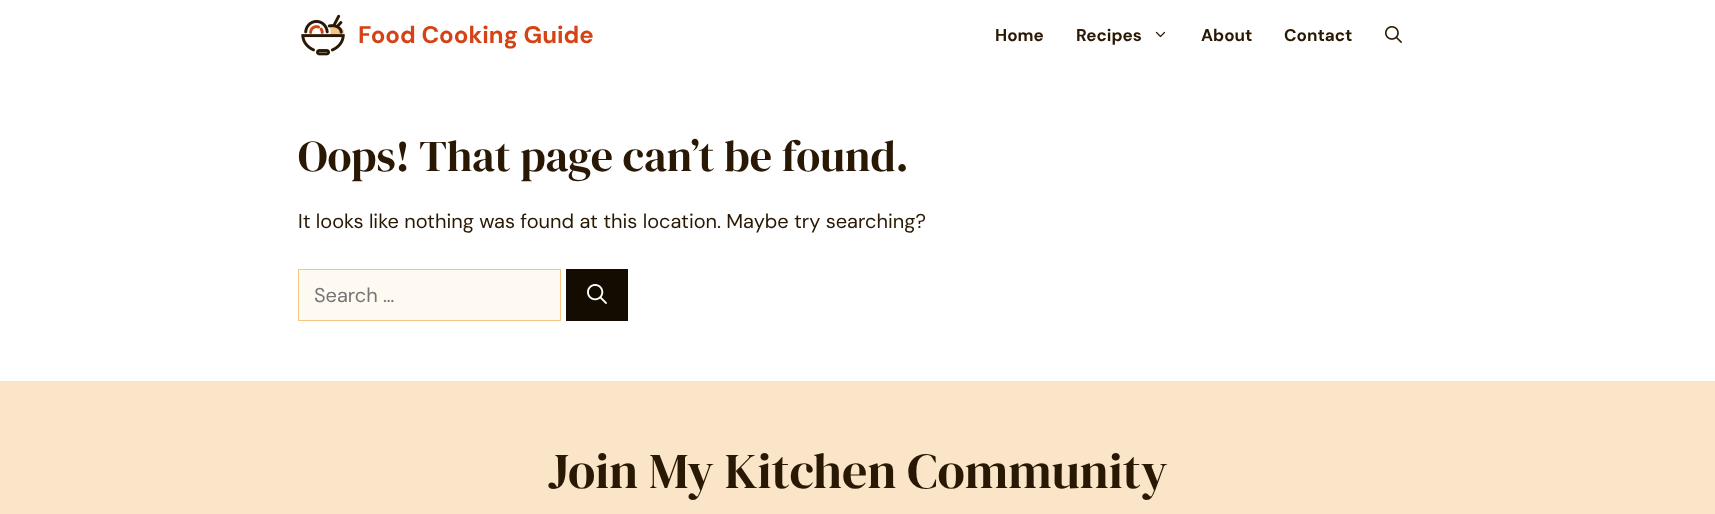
<svg xmlns="http://www.w3.org/2000/svg" width="1715" height="514">
<rect width="100%" height="100%" fill="#fff"/>
<image x="301" y="14" width="44" height="42" href="media/1.png"/>
<text x="358" y="43" style="font-family:DM Sans;font-size:24px;font-weight:bold;fill:#d54215">Food Cooking Guide</text>
<text x="995" y="41" style="font-family:DM Sans;font-size:17px;font-weight:bold;fill:#291803">Home</text>
<text x="1076" y="41" style="font-family:DM Sans;font-size:17px;font-weight:bold;fill:#291803">Recipes</text>
<image x="1155" y="31" width="11" height="7" href="media/2.png"/>
<text x="1201" y="41" style="font-family:DM Sans;font-size:17px;font-weight:bold;fill:#291803">About</text>
<text x="1284" y="41" style="font-family:DM Sans;font-size:17px;font-weight:bold;fill:#291803">Contact</text>
<image x="1385" y="26" width="17" height="17" href="media/3.png"/>
<text x="298" y="171" style="font-family:DM Serif Display;font-size:44px;fill:#291803">Oops! That page can’t be found.</text>
<text x="298" y="228" style="font-family:DM Sans;font-size:20px;fill:#291803">It looks like nothing was found at this location. Maybe try searching?</text>
<rect x="298.5" y="269.5" width="262" height="51" fill="#fef9f1" stroke="#f6c584"/>
<text x="314" y="302" style="font-family:DM Sans;font-size:20px;fill:#757575">Search …</text>
<rect x="566" y="269" width="62" height="52" fill="#140c01"/>
<image x="587" y="284" width="20" height="20" href="media/4.png"/>
<rect y="381" width="1715" height="133" fill="#fbe5c9"/>
<text x="548" y="488" style="font-family:DM Serif Display;font-size:50px;fill:#291803">Join My Kitchen Community</text>
</svg>
